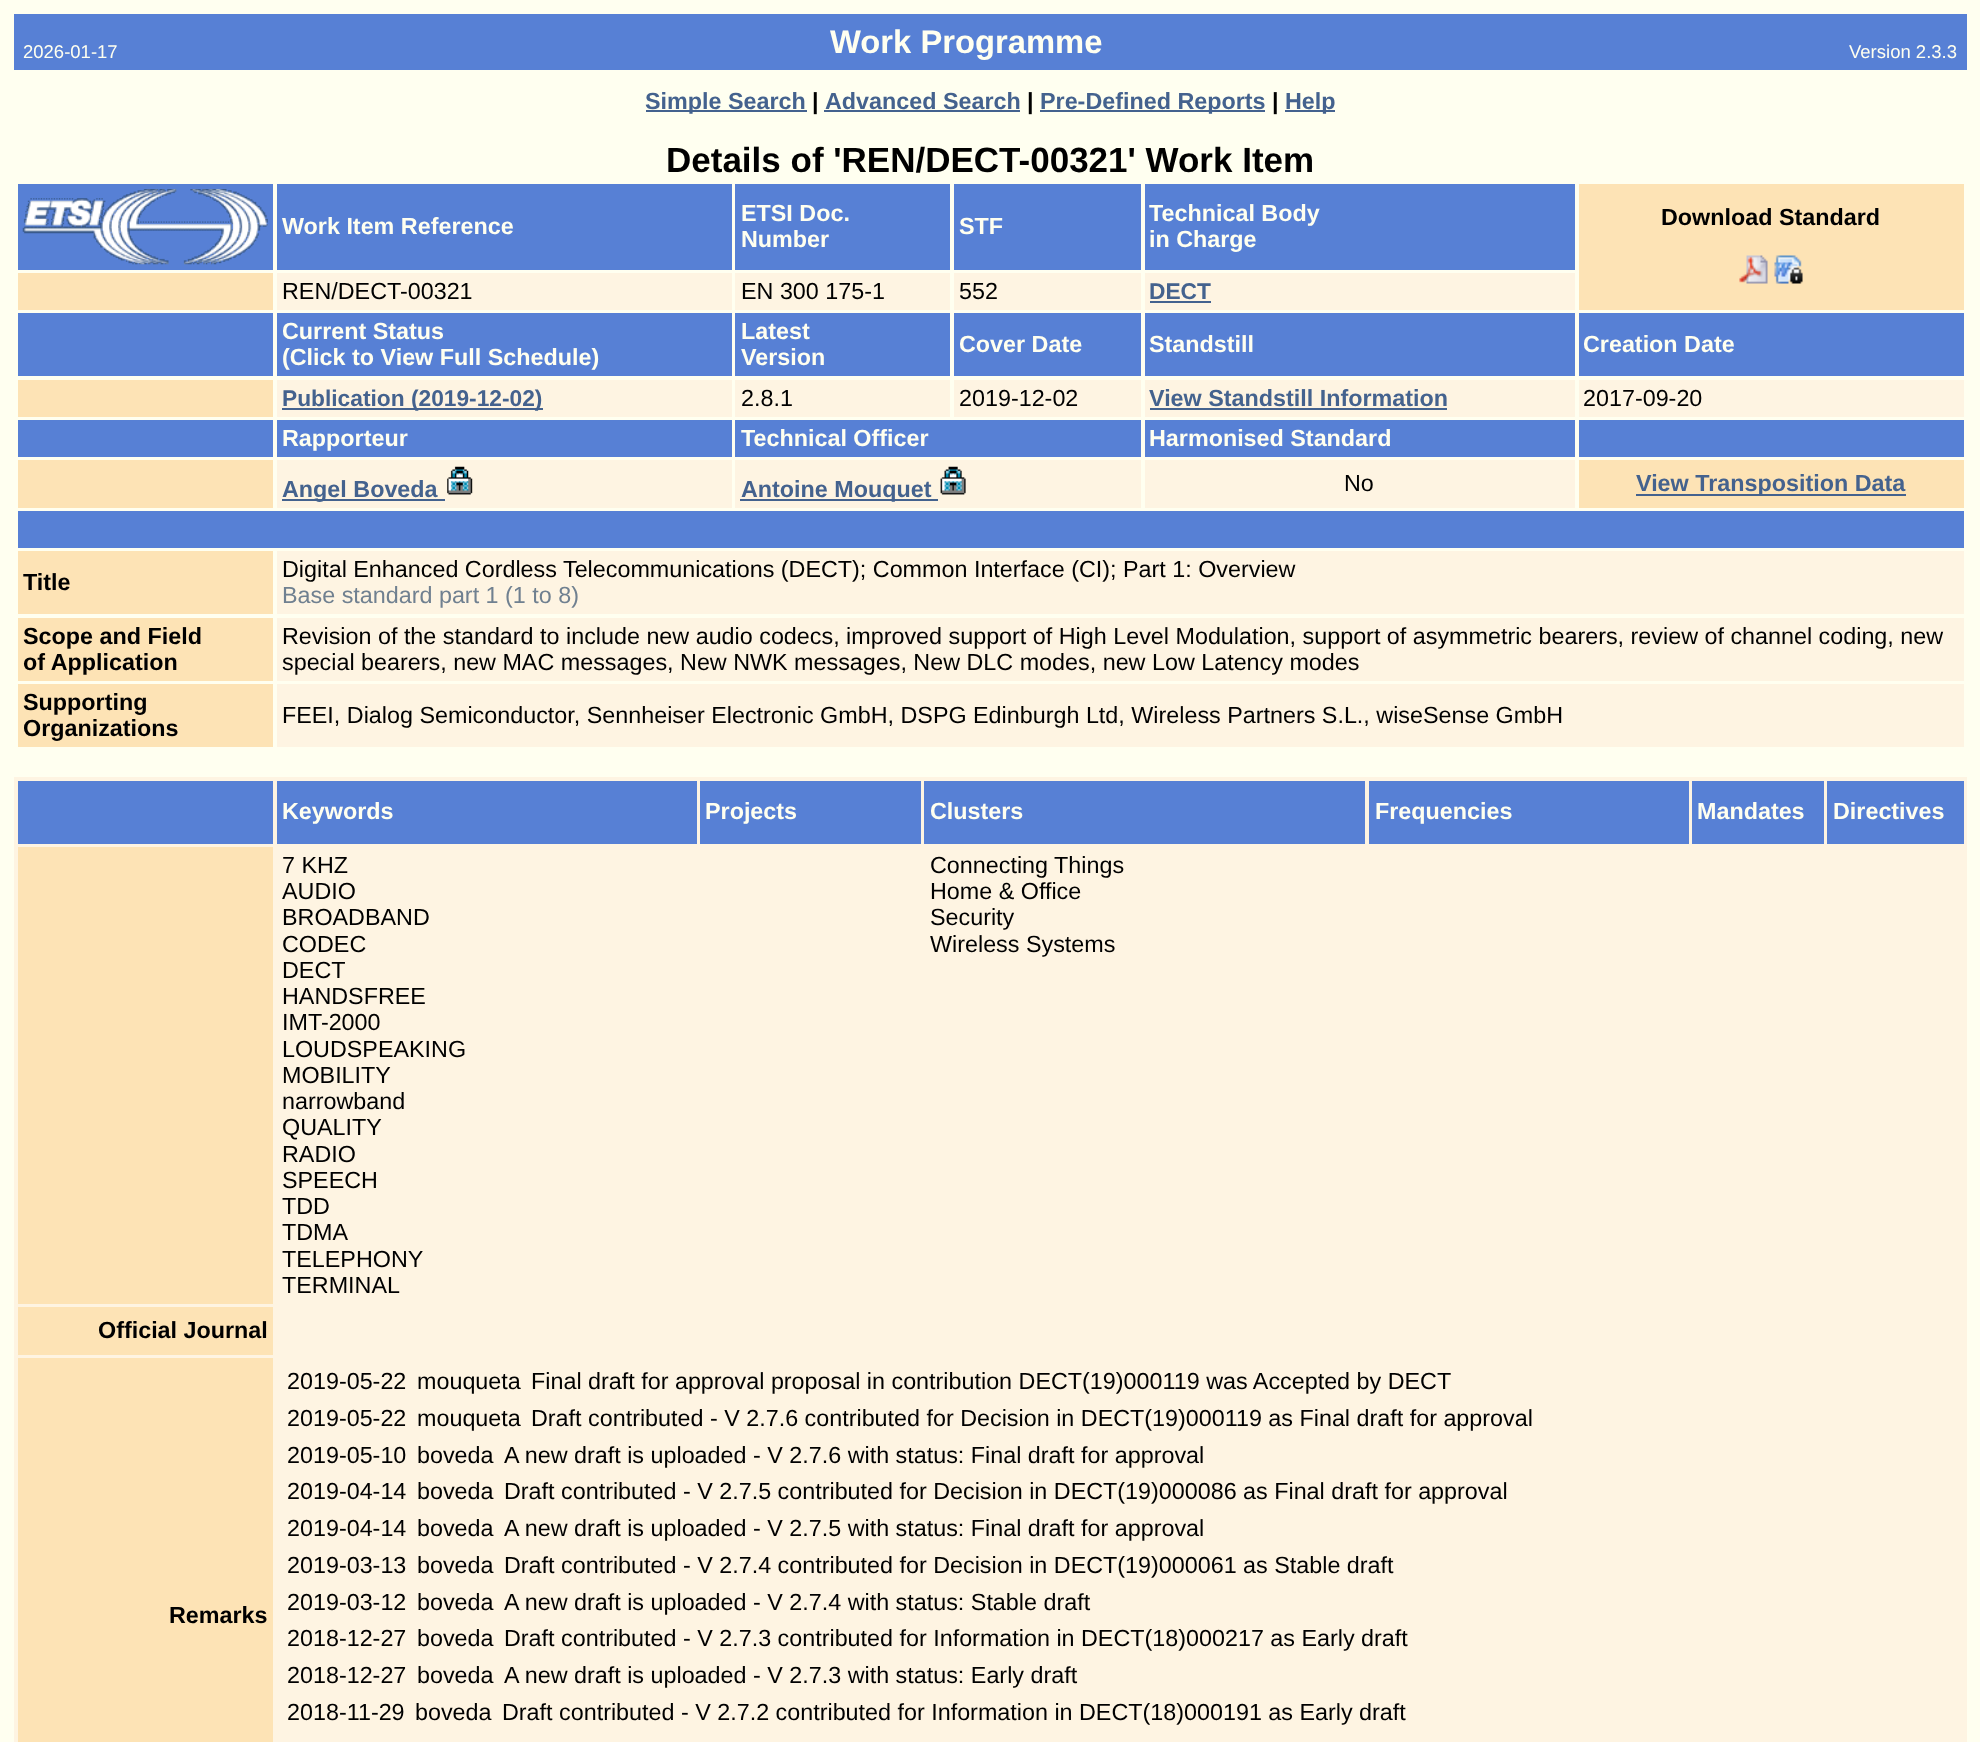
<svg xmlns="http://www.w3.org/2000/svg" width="1980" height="1742">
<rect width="100%" height="100%" fill="#fffff0"/>
<rect x="14" y="14" width="1953" height="56" fill="#5780d5"/>
<text x="23" y="58" style="font-family:Liberation Sans;font-size:18.5px;fill:#fffff0">2026-01-17</text>
<text x="830" y="53" style="font-family:Liberation Sans;font-size:32.75px;font-weight:bold;fill:#fffff0">Work Programme</text>
<text x="1849" y="58" style="font-family:Liberation Sans;font-size:18.5px;fill:#fffff0">Version 2.3.3</text>
<rect x="646" y="110" width="161" height="2" fill="#44628e"/>
<text x="645" y="109" style="font-family:Liberation Sans;font-size:23.33px;font-weight:bold;fill:#44628e">Simple Search</text>
<text x="812" y="109" style="font-family:Liberation Sans;font-size:23.33px;font-weight:bold;fill:#000">|</text>
<text x="825" y="109" style="font-family:Liberation Sans;font-size:23.33px;font-weight:bold;fill:#44628e">Advanced Search</text>
<rect x="824" y="110" width="196" height="2" fill="#44628e"/>
<text x="1027" y="109" style="font-family:Liberation Sans;font-size:23.33px;font-weight:bold;fill:#000">|</text>
<rect x="1040" y="110" width="225" height="2" fill="#44628e"/>
<text x="1040" y="109" style="font-family:Liberation Sans;font-size:23.33px;font-weight:bold;fill:#44628e">Pre-Defined Reports</text>
<text x="1272" y="109" style="font-family:Liberation Sans;font-size:23.33px;font-weight:bold;fill:#000">|</text>
<rect x="1285" y="110" width="50" height="2" fill="#44628e"/>
<text x="1285" y="109" style="font-family:Liberation Sans;font-size:23.33px;font-weight:bold;fill:#44628e">Help</text>
<text x="666" y="172" style="font-family:Liberation Sans;font-size:35px;font-weight:bold;fill:#000">Details of 'REN/DECT-00321' Work Item</text>
<rect x="18" y="184" width="255" height="86" fill="#5780d5"/>
<image x="22" y="189" width="246" height="76" href="media/1.png"/>
<rect x="277" y="184" width="455" height="86" fill="#5780d5"/>
<text x="282" y="234" style="font-family:Liberation Sans;font-size:23.33px;font-weight:bold;fill:#fffff0">Work Item Reference</text>
<rect x="735" y="184" width="215" height="86" fill="#5780d5"/>
<text x="741" y="221" style="font-family:Liberation Sans;font-size:23.33px;font-weight:bold;fill:#fffff0">ETSI Doc.</text>
<text x="741" y="247" style="font-family:Liberation Sans;font-size:23.33px;font-weight:bold;fill:#fffff0">Number</text>
<rect x="954" y="184" width="187" height="86" fill="#5780d5"/>
<text x="959" y="234" style="font-family:Liberation Sans;font-size:23.33px;font-weight:bold;fill:#fffff0">STF</text>
<rect x="1145" y="184" width="430" height="86" fill="#5780d5"/>
<text x="1149" y="221" style="font-family:Liberation Sans;font-size:23.33px;font-weight:bold;fill:#fffff0">Technical Body</text>
<text x="1149" y="247" style="font-family:Liberation Sans;font-size:23.33px;font-weight:bold;fill:#fffff0">in Charge</text>
<rect x="1579" y="184" width="385" height="126" fill="#fde3b5"/>
<text x="1661" y="225" style="font-family:Liberation Sans;font-size:23.33px;font-weight:bold;fill:#000">Download Standard</text>
<image x="1739" y="255" width="29" height="29" href="media/2.png"/>
<image x="1774" y="255" width="29" height="29" href="media/3.png"/>
<rect x="18" y="273" width="255" height="37" fill="#fde3b5"/>
<rect x="277" y="273" width="455" height="37" fill="#fef4e2"/>
<text x="282" y="299" style="font-family:Liberation Sans;font-size:23.33px;fill:#000">REN/DECT-00321</text>
<rect x="735" y="273" width="215" height="37" fill="#fef4e2"/>
<text x="741" y="299" style="font-family:Liberation Sans;font-size:23.33px;fill:#000">EN 300 175-1</text>
<rect x="954" y="273" width="187" height="37" fill="#fef4e2"/>
<text x="959" y="299" style="font-family:Liberation Sans;font-size:23.33px;fill:#000">552</text>
<rect x="1145" y="273" width="430" height="37" fill="#fef4e2"/>
<text x="1149" y="299" style="font-family:Liberation Sans;font-size:22.75px;font-weight:bold;fill:#44628e">DECT</text>
<rect x="1150" y="301" width="61" height="2" fill="#44628e"/>
<rect x="18" y="313" width="255" height="63" fill="#5780d5"/>
<rect x="277" y="313" width="455" height="63" fill="#5780d5"/>
<text x="282" y="339" style="font-family:Liberation Sans;font-size:23.33px;font-weight:bold;fill:#fffff0">Current Status</text>
<text x="282" y="365" style="font-family:Liberation Sans;font-size:23.33px;font-weight:bold;fill:#fffff0">(Click to View Full Schedule)</text>
<rect x="735" y="313" width="215" height="63" fill="#5780d5"/>
<text x="741" y="339" style="font-family:Liberation Sans;font-size:23.33px;font-weight:bold;fill:#fffff0">Latest</text>
<text x="741" y="365" style="font-family:Liberation Sans;font-size:23.33px;font-weight:bold;fill:#fffff0">Version</text>
<rect x="954" y="313" width="187" height="63" fill="#5780d5"/>
<text x="959" y="352" style="font-family:Liberation Sans;font-size:23.33px;font-weight:bold;fill:#fffff0">Cover Date</text>
<rect x="1145" y="313" width="430" height="63" fill="#5780d5"/>
<text x="1149" y="352" style="font-family:Liberation Sans;font-size:23.33px;font-weight:bold;fill:#fffff0">Standstill</text>
<rect x="1579" y="313" width="385" height="63" fill="#5780d5"/>
<text x="1583" y="352" style="font-family:Liberation Sans;font-size:23.33px;font-weight:bold;fill:#fffff0">Creation Date</text>
<rect x="18" y="380" width="255" height="37" fill="#fde3b5"/>
<rect x="277" y="380" width="455" height="37" fill="#fef4e2"/>
<rect x="282" y="408" width="261" height="2" fill="#44628e"/>
<text x="282" y="406" style="font-family:Liberation Sans;font-size:22.75px;font-weight:bold;fill:#44628e">Publication (2019-12-02)</text>
<rect x="735" y="380" width="215" height="37" fill="#fef4e2"/>
<text x="741" y="406" style="font-family:Liberation Sans;font-size:23.33px;fill:#000">2.8.1</text>
<rect x="954" y="380" width="187" height="37" fill="#fef4e2"/>
<text x="959" y="406" style="font-family:Liberation Sans;font-size:23.33px;fill:#000">2019-12-02</text>
<rect x="1145" y="380" width="430" height="37" fill="#fef4e2"/>
<text x="1149" y="406" style="font-family:Liberation Sans;font-size:23.33px;font-weight:bold;fill:#44628e">View Standstill Information</text>
<rect x="1150" y="408" width="297" height="2" fill="#44628e"/>
<rect x="1579" y="380" width="385" height="37" fill="#fef4e2"/>
<text x="1583" y="406" style="font-family:Liberation Sans;font-size:23.33px;fill:#000">2017-09-20</text>
<rect x="18" y="420" width="255" height="37" fill="#5780d5"/>
<rect x="277" y="420" width="455" height="37" fill="#5780d5"/>
<text x="282" y="446" style="font-family:Liberation Sans;font-size:23.33px;font-weight:bold;fill:#fffff0">Rapporteur</text>
<rect x="735" y="420" width="406" height="37" fill="#5780d5"/>
<text x="741" y="446" style="font-family:Liberation Sans;font-size:23.33px;font-weight:bold;fill:#fffff0">Technical Officer</text>
<rect x="1145" y="420" width="430" height="37" fill="#5780d5"/>
<text x="1149" y="446" style="font-family:Liberation Sans;font-size:23.33px;font-weight:bold;fill:#fffff0">Harmonised Standard</text>
<rect x="1579" y="420" width="385" height="37" fill="#5780d5"/>
<rect x="18" y="460" width="255" height="48" fill="#fde3b5"/>
<rect x="277" y="460" width="455" height="48" fill="#fef4e2"/>
<rect x="282" y="499" width="163" height="2" fill="#44628e"/>
<text x="282" y="497" style="font-family:Liberation Sans;font-size:23.33px;font-weight:bold;fill:#44628e">Angel Boveda</text>
<image x="447" y="466" width="26" height="29" href="media/4.png"/>
<rect x="735" y="460" width="406" height="48" fill="#fef4e2"/>
<rect x="740" y="499" width="191" height="2" fill="#44628e"/>
<text x="741" y="497" style="font-family:Liberation Sans;font-size:23.33px;font-weight:bold;fill:#44628e">Antoine Mouquet</text>
<rect x="931" y="499" width="7" height="2" fill="#44628e"/>
<image x="940" y="466" width="26" height="29" href="media/5.png"/>
<rect x="1145" y="460" width="430" height="48" fill="#fef4e2"/>
<text x="1344" y="491" style="font-family:Liberation Sans;font-size:23.33px;fill:#000">No</text>
<rect x="1579" y="460" width="385" height="48" fill="#fde3b5"/>
<rect x="1636" y="494" width="270" height="2" fill="#44628e"/>
<text x="1636" y="491" style="font-family:Liberation Sans;font-size:23.33px;font-weight:bold;fill:#44628e">View Transposition Data</text>
<rect x="18" y="511" width="1946" height="37" fill="#5780d5"/>
<rect x="18" y="551" width="255" height="63" fill="#fde3b5"/>
<text x="23" y="590" style="font-family:Liberation Sans;font-size:23.33px;font-weight:bold;fill:#000">Title</text>
<rect x="277" y="551" width="1687" height="63" fill="#fef4e2"/>
<text x="282" y="577" style="font-family:Liberation Sans;font-size:23.33px;fill:#000">Digital Enhanced Cordless Telecommunications (DECT); Common Interface (CI); Part 1: Overview</text>
<text x="282" y="603" style="font-family:Liberation Sans;font-size:23.33px;fill:#708090">Base standard part 1 (1 to 8)</text>
<rect x="18" y="618" width="255" height="63" fill="#fde3b5"/>
<text x="23" y="644" style="font-family:Liberation Sans;font-size:23.33px;font-weight:bold;fill:#000">Scope and Field</text>
<text x="23" y="670" style="font-family:Liberation Sans;font-size:23.33px;font-weight:bold;fill:#000">of Application</text>
<rect x="277" y="618" width="1687" height="63" fill="#fef4e2"/>
<text x="282" y="644" style="font-family:Liberation Sans;font-size:23.33px;fill:#000">Revision of the standard to include new audio codecs, improved support of High Level Modulation, support of asymmetric bearers, review of channel coding, new</text>
<text x="282" y="670" style="font-family:Liberation Sans;font-size:23.33px;fill:#000">special bearers, new MAC messages, New NWK messages, New DLC modes, new Low Latency modes</text>
<rect x="18" y="684" width="255" height="63" fill="#fde3b5"/>
<text x="23" y="710" style="font-family:Liberation Sans;font-size:23.33px;font-weight:bold;fill:#000">Supporting</text>
<text x="23" y="736" style="font-family:Liberation Sans;font-size:23.33px;font-weight:bold;fill:#000">Organizations</text>
<rect x="277" y="684" width="1687" height="63" fill="#fef4e2"/>
<text x="282" y="723" style="font-family:Liberation Sans;font-size:23.33px;fill:#000">FEEI, Dialog Semiconductor, Sennheiser Electronic GmbH, DSPG Edinburgh Ltd, Wireless Partners S.L., wiseSense GmbH</text>
<rect x="14" y="777" width="1953" height="965" fill="#fef4e2"/>
<rect x="18" y="781" width="255" height="63" fill="#5780d5"/>
<rect x="277" y="781" width="420" height="63" fill="#5780d5"/>
<text x="282" y="819" style="font-family:Liberation Sans;font-size:23.33px;font-weight:bold;fill:#fffff0">Keywords</text>
<rect x="700" y="781" width="221" height="63" fill="#5780d5"/>
<text x="705" y="819" style="font-family:Liberation Sans;font-size:23.33px;font-weight:bold;fill:#fffff0">Projects</text>
<rect x="924" y="781" width="441" height="63" fill="#5780d5"/>
<text x="930" y="819" style="font-family:Liberation Sans;font-size:23.33px;font-weight:bold;fill:#fffff0">Clusters</text>
<rect x="1369" y="781" width="320" height="63" fill="#5780d5"/>
<text x="1375" y="819" style="font-family:Liberation Sans;font-size:23.33px;font-weight:bold;fill:#fffff0">Frequencies</text>
<rect x="1692" y="781" width="132" height="63" fill="#5780d5"/>
<text x="1697" y="819" style="font-family:Liberation Sans;font-size:23.33px;font-weight:bold;fill:#fffff0">Mandates</text>
<rect x="1827" y="781" width="137" height="63" fill="#5780d5"/>
<text x="1833" y="819" style="font-family:Liberation Sans;font-size:23.33px;font-weight:bold;fill:#fffff0">Directives</text>
<rect x="18" y="847" width="255" height="457" fill="#fde3b5"/>
<text x="282" y="873" style="font-family:Liberation Sans;font-size:23.33px;fill:#000">7 KHZ</text>
<text x="282" y="899" style="font-family:Liberation Sans;font-size:23.33px;fill:#000">AUDIO</text>
<text x="282" y="925" style="font-family:Liberation Sans;font-size:23.33px;fill:#000">BROADBAND</text>
<text x="282" y="952" style="font-family:Liberation Sans;font-size:23.33px;fill:#000">CODEC</text>
<text x="282" y="978" style="font-family:Liberation Sans;font-size:23.33px;fill:#000">DECT</text>
<text x="282" y="1004" style="font-family:Liberation Sans;font-size:23.33px;fill:#000">HANDSFREE</text>
<text x="282" y="1030" style="font-family:Liberation Sans;font-size:23.33px;fill:#000">IMT-2000</text>
<text x="282" y="1057" style="font-family:Liberation Sans;font-size:23.33px;fill:#000">LOUDSPEAKING</text>
<text x="282" y="1083" style="font-family:Liberation Sans;font-size:23.33px;fill:#000">MOBILITY</text>
<text x="282" y="1109" style="font-family:Liberation Sans;font-size:23.33px;fill:#000">narrowband</text>
<text x="282" y="1135" style="font-family:Liberation Sans;font-size:23.33px;fill:#000">QUALITY</text>
<text x="282" y="1162" style="font-family:Liberation Sans;font-size:23.33px;fill:#000">RADIO</text>
<text x="282" y="1188" style="font-family:Liberation Sans;font-size:23.33px;fill:#000">SPEECH</text>
<text x="282" y="1214" style="font-family:Liberation Sans;font-size:23.33px;fill:#000">TDD</text>
<text x="282" y="1240" style="font-family:Liberation Sans;font-size:23.33px;fill:#000">TDMA</text>
<text x="282" y="1267" style="font-family:Liberation Sans;font-size:23.33px;fill:#000">TELEPHONY</text>
<text x="282" y="1293" style="font-family:Liberation Sans;font-size:23.33px;fill:#000">TERMINAL</text>
<text x="930" y="873" style="font-family:Liberation Sans;font-size:23.33px;fill:#000">Connecting Things</text>
<text x="930" y="899" style="font-family:Liberation Sans;font-size:23.33px;fill:#000">Home &amp; Office</text>
<text x="930" y="925" style="font-family:Liberation Sans;font-size:23.33px;fill:#000">Security</text>
<text x="930" y="952" style="font-family:Liberation Sans;font-size:23.33px;fill:#000">Wireless Systems</text>
<rect x="18" y="1307" width="255" height="48" fill="#fde3b5"/>
<text x="98" y="1338" style="font-family:Liberation Sans;font-size:23.33px;font-weight:bold;fill:#000">Official Journal</text>
<rect x="18" y="1358" width="255" height="384" fill="#fde3b5"/>
<text x="169" y="1623" style="font-family:Liberation Sans;font-size:23.33px;font-weight:bold;fill:#000">Remarks</text>
<text x="287" y="1389" style="font-family:Liberation Sans;font-size:23.33px;fill:#000">2019-05-22</text>
<text x="417" y="1389" style="font-family:Liberation Sans;font-size:23.33px;fill:#000">mouqueta</text>
<text x="531" y="1389" style="font-family:Liberation Sans;font-size:23.33px;fill:#000">Final draft for approval proposal in contribution DECT(19)000119 was Accepted by DECT</text>
<text x="287" y="1426" style="font-family:Liberation Sans;font-size:23.33px;fill:#000">2019-05-22</text>
<text x="417" y="1426" style="font-family:Liberation Sans;font-size:23.33px;fill:#000">mouqueta</text>
<text x="531" y="1426" style="font-family:Liberation Sans;font-size:23.33px;fill:#000">Draft contributed - V 2.7.6 contributed for Decision in DECT(19)000119 as Final draft for approval</text>
<text x="287" y="1463" style="font-family:Liberation Sans;font-size:23.33px;fill:#000">2019-05-10</text>
<text x="417" y="1463" style="font-family:Liberation Sans;font-size:23.33px;fill:#000">boveda</text>
<text x="504" y="1463" style="font-family:Liberation Sans;font-size:23.33px;fill:#000">A new draft is uploaded - V 2.7.6 with status: Final draft for approval</text>
<text x="287" y="1499" style="font-family:Liberation Sans;font-size:23.33px;fill:#000">2019-04-14</text>
<text x="417" y="1499" style="font-family:Liberation Sans;font-size:23.33px;fill:#000">boveda</text>
<text x="504" y="1499" style="font-family:Liberation Sans;font-size:23.33px;fill:#000">Draft contributed - V 2.7.5 contributed for Decision in DECT(19)000086 as Final draft for approval</text>
<text x="287" y="1536" style="font-family:Liberation Sans;font-size:23.33px;fill:#000">2019-04-14</text>
<text x="417" y="1536" style="font-family:Liberation Sans;font-size:23.33px;fill:#000">boveda</text>
<text x="504" y="1536" style="font-family:Liberation Sans;font-size:23.33px;fill:#000">A new draft is uploaded - V 2.7.5 with status: Final draft for approval</text>
<text x="287" y="1573" style="font-family:Liberation Sans;font-size:23.33px;fill:#000">2019-03-13</text>
<text x="417" y="1573" style="font-family:Liberation Sans;font-size:23.33px;fill:#000">boveda</text>
<text x="504" y="1573" style="font-family:Liberation Sans;font-size:23.33px;fill:#000">Draft contributed - V 2.7.4 contributed for Decision in DECT(19)000061 as Stable draft</text>
<text x="287" y="1610" style="font-family:Liberation Sans;font-size:23.33px;fill:#000">2019-03-12</text>
<text x="417" y="1610" style="font-family:Liberation Sans;font-size:23.33px;fill:#000">boveda</text>
<text x="504" y="1610" style="font-family:Liberation Sans;font-size:23.33px;fill:#000">A new draft is uploaded - V 2.7.4 with status: Stable draft</text>
<text x="287" y="1646" style="font-family:Liberation Sans;font-size:23.33px;fill:#000">2018-12-27</text>
<text x="417" y="1646" style="font-family:Liberation Sans;font-size:23.33px;fill:#000">boveda</text>
<text x="504" y="1646" style="font-family:Liberation Sans;font-size:23.33px;fill:#000">Draft contributed - V 2.7.3 contributed for Information in DECT(18)000217 as Early draft</text>
<text x="287" y="1683" style="font-family:Liberation Sans;font-size:23.33px;fill:#000">2018-12-27</text>
<text x="417" y="1683" style="font-family:Liberation Sans;font-size:23.33px;fill:#000">boveda</text>
<text x="504" y="1683" style="font-family:Liberation Sans;font-size:23.33px;fill:#000">A new draft is uploaded - V 2.7.3 with status: Early draft</text>
<text x="287" y="1720" style="font-family:Liberation Sans;font-size:23.33px;fill:#000">2018-11-29</text>
<text x="415" y="1720" style="font-family:Liberation Sans;font-size:23.33px;fill:#000">boveda</text>
<text x="502" y="1720" style="font-family:Liberation Sans;font-size:23.33px;fill:#000">Draft contributed - V 2.7.2 contributed for Information in DECT(18)000191 as Early draft</text>
</svg>
